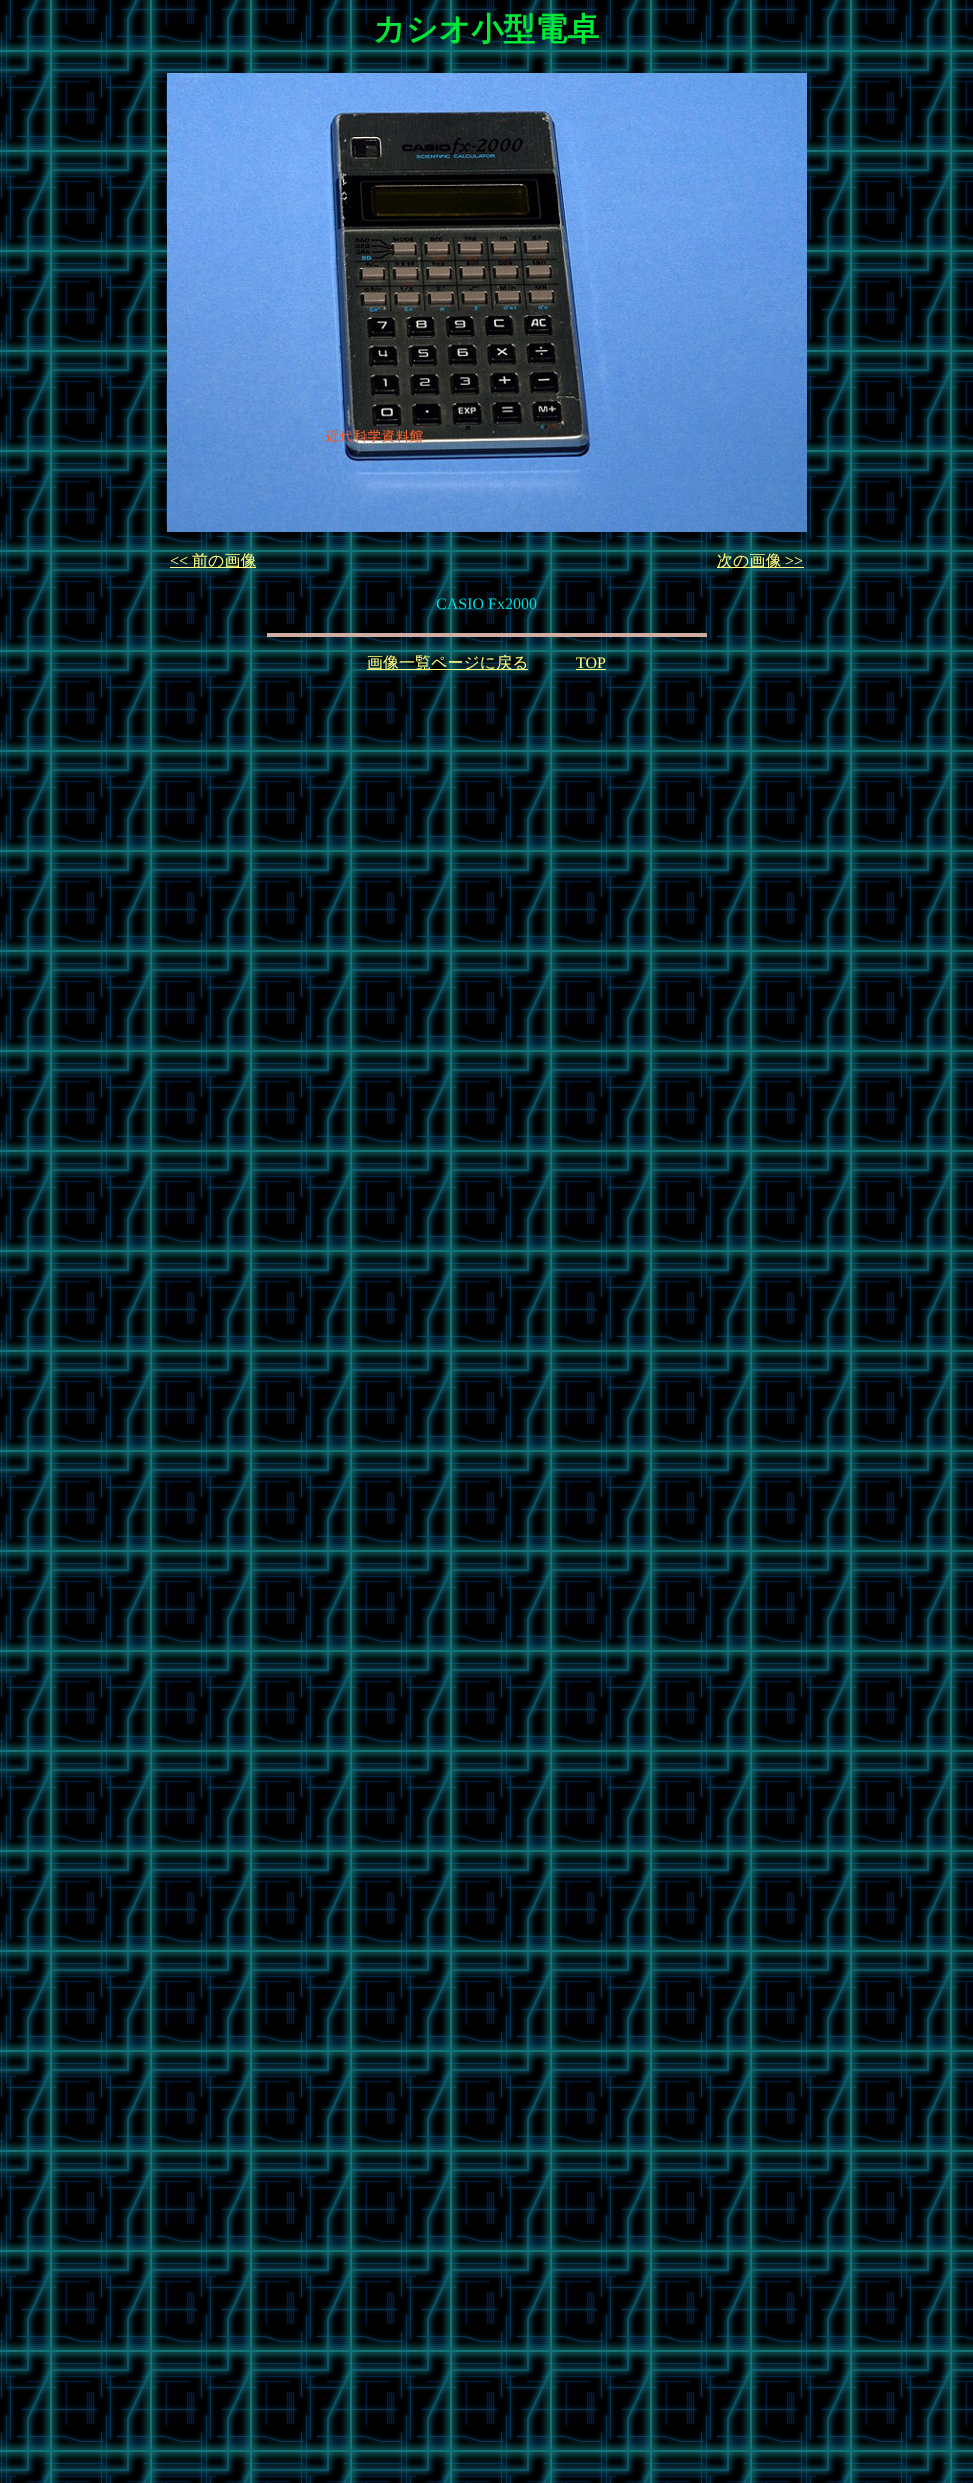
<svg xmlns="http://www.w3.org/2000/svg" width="973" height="2483">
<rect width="100%" height="100%" fill="#fff"/>
<image x="0" y="0" width="973" height="2483" href="media/1.png"/>
<text x="373" y="40" style="font-family:WenQuanYi Zen Hei;font-size:32px;font-weight:bold;fill:#00e83a">カシオ小型電卓</text>
<image x="167" y="73" width="640" height="459" href="media/2.png"/>
<text x="170" y="566" style="font-family:Liberation Serif;font-size:16px;fill:#ffff80">&lt;&lt;</text>
<rect x="170" y="567" width="86" height="1" fill="#ffff80"/>
<text x="192" y="566" style="font-family:WenQuanYi Zen Hei;font-size:16px;font-weight:500;fill:#ffff80">前の画像</text>
<rect x="717" y="567" width="87" height="1" fill="#ffff80"/>
<text x="717" y="566" style="font-family:WenQuanYi Zen Hei;font-size:16px;font-weight:500;fill:#ffff80">次の画像</text>
<text x="785" y="566" style="font-family:Liberation Serif;font-size:16px;fill:#ffff80">&gt;&gt;</text>
<text x="436" y="609" style="font-family:Liberation Serif;font-size:16px;fill:#00dbdb">CASIO Fx2000</text>
<rect x="267" y="633" width="440" height="4" fill="#d1aca3"/>
<rect x="367" y="669" width="161" height="1" fill="#ffff80"/>
<text x="367" y="668" style="font-family:WenQuanYi Zen Hei;font-size:16px;font-weight:500;fill:#ffff80">画像一覧ページに戻る</text>
<text x="576" y="668" style="font-family:Liberation Serif;font-size:16px;fill:#ffff80">TOP</text>
<rect x="576" y="669" width="30" height="1" fill="#ffff80"/>
</svg>
